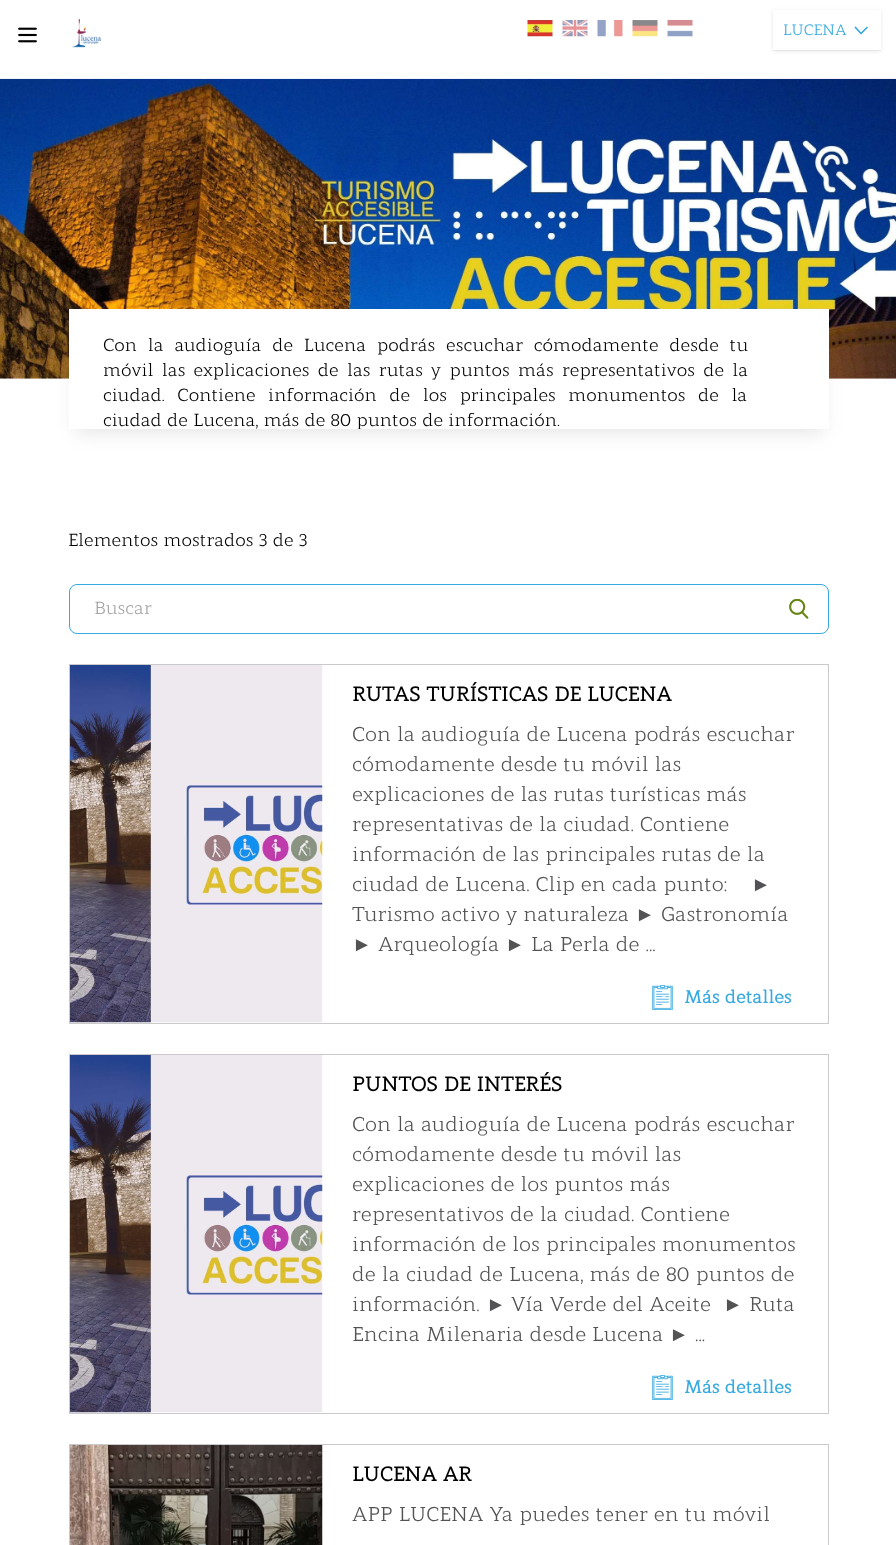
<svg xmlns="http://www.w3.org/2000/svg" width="896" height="1545">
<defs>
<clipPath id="clip1"><rect x="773" y="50" width="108" height="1"/></clipPath>
<clipPath id="clip2"><path d="M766 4h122v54h-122zm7 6h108v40h-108z" clip-rule="evenodd"/></clipPath>
<clipPath id="clip3"><rect x="69" y="309" width="760" height="120"/></clipPath>
</defs>
<rect width="100%" height="100%" fill="#fff"/>
<image x="18" y="27" width="19" height="16" href="media/1.png"/>
<image x="72" y="18" width="29" height="30" href="media/2.png"/>
<image x="527" y="20" width="26" height="17" href="media/3.png"/>
<image x="562" y="20" width="26" height="17" href="media/4.png"/>
<image x="597" y="20" width="26" height="17" href="media/5.png"/>
<image x="632" y="20" width="26" height="17" href="media/6.png"/>
<image x="667" y="20" width="26" height="17" href="media/7.png"/>
<g clip-path="url(#clip1)">
<rect x="773" y="11" width="108" height="40" fill="#0000000f" filter="blur(1px)"/>
</g>
<g clip-path="url(#clip2)">
<rect x="773" y="11" width="108" height="40" fill="#0000001a" filter="blur(2px)"/>
</g>
<text x="783" y="35" style="font-family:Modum;font-size:15px;fill:#36a9e0">LUCENA</text>
<path d="M867 27.5l-6 6l-5.5-6" fill="none" stroke="#36a9e0" stroke-width="1.7" stroke-linecap="round" stroke-linejoin="round"/>
<image x="0" y="78" width="896" height="301" href="media/8.png"/>
<rect x="75" y="325" width="748" height="108" fill="#0000001a" filter="blur(9.5px)"/>
<rect x="69" y="309" width="760" height="120" fill="#fff"/>
<text x="103" y="351" word-spacing="5.5" style="font-family:Modum;font-size:17.5px;fill:#000">Con la audioguía de Lucena podrás escuchar cómodamente desde tu</text>
<text x="103" y="376" word-spacing="3" style="font-family:Modum;font-size:17.5px;fill:#000">móvil las explicaciones de las rutas y puntos más representativos de la</text>
<text x="103" y="401" word-spacing="7.25" style="font-family:Modum;font-size:17.5px;fill:#000">ciudad. Contiene información de los principales monumentos de la</text>
<g clip-path="url(#clip3)">
<text x="103" y="426" style="font-family:Modum;font-size:17.5px;fill:#000">ciudad de Lucena, más de 80 puntos de información.</text>
</g>
<text x="68" y="546" style="font-family:Modum;font-size:17.5px;fill:#000">Elementos mostrados 3 de 3</text>
<rect x="69.5" y="584.5" width="759" height="49" rx="7.5" fill="none" stroke="#36a9e0"/>
<text x="94" y="614" style="font-family:Modum;font-size:17.5px;fill:#a3a3a3">Buscar</text>
<image x="789" y="599" width="20" height="20" href="media/9.png"/>
<rect x="69.5" y="664.5" width="759" height="359" fill="none" stroke="#cacacc"/>
<image x="70" y="665" width="253" height="358" href="media/10.png"/>
<text x="352" y="701" style="font-family:Modum;font-size:20px;font-weight:bold;fill:#000">RUTAS TURÍSTICAS DE LUCENA</text>
<text x="352" y="741" style="font-family:Modum;font-size:20px;fill:#535355">Con la audioguía de Lucena podrás escuchar</text>
<text x="352" y="771" style="font-family:Modum;font-size:20px;fill:#535355">cómodamente desde tu móvil las</text>
<text x="352" y="801" style="font-family:Modum;font-size:20px;fill:#535355">explicaciones de las rutas turísticas</text>
<text x="706" y="801" style="font-family:Modum;font-size:20px;fill:#535355">más</text>
<text x="352" y="831" style="font-family:Modum;font-size:20px;fill:#535355">representativas de la ciudad. Contiene</text>
<text x="352" y="861" style="font-family:Modum;font-size:20px;fill:#535355">información de las principales rutas</text>
<text x="717" y="861" style="font-family:Modum;font-size:20px;fill:#535355">de la</text>
<text x="352" y="891" style="font-family:Modum;font-size:20px;fill:#535355">ciudad de Lucena. Clip en cada punto:</text>
<text x="751" y="891" style="font-family:Liberation Sans;font-size:20px;fill:#535355">►</text>
<text x="352" y="921" style="font-family:Modum;font-size:20px;fill:#535355">Turismo activo y naturaleza</text>
<text x="635" y="921" style="font-family:Liberation Sans;font-size:20px;fill:#535355">►</text>
<text x="661" y="921" style="font-family:Modum;font-size:20px;fill:#535355">Gastronomía</text>
<text x="352" y="951" style="font-family:Liberation Sans;font-size:20px;fill:#535355">►</text>
<text x="378" y="951" style="font-family:Modum;font-size:20px;fill:#535355">Arqueología</text>
<text x="505" y="951" style="font-family:Liberation Sans;font-size:20px;fill:#535355">►</text>
<text x="531" y="951" style="font-family:Modum;font-size:20px;fill:#535355">La Perla de ...</text>
<image x="652" y="985" width="21" height="25" href="media/11.png"/>
<text x="684" y="1003" style="font-family:Modum;font-size:17.5px;font-weight:bold;fill:#36a9e0">Más detalles</text>
<rect x="69.5" y="1054.5" width="759" height="359" fill="none" stroke="#cacacc"/>
<image x="70" y="1055" width="253" height="358" href="media/10.png"/>
<text x="352" y="1091" style="font-family:Modum;font-size:20px;font-weight:bold;fill:#000">PUNTOS DE INTERÉS</text>
<text x="352" y="1131" style="font-family:Modum;font-size:20px;fill:#535355">Con la audioguía de Lucena podrás escuchar</text>
<text x="352" y="1161" style="font-family:Modum;font-size:20px;fill:#535355">cómodamente desde tu móvil las</text>
<text x="352" y="1191" style="font-family:Modum;font-size:20px;fill:#535355">explicaciones de los puntos más</text>
<text x="352" y="1221" style="font-family:Modum;font-size:20px;fill:#535355">representativos de la ciudad. Contiene</text>
<text x="352" y="1251" style="font-family:Modum;font-size:20px;fill:#535355">información de los principales monumentos</text>
<text x="352" y="1281" style="font-family:Modum;font-size:20px;fill:#535355">de la ciudad de Lucena, más de 80 puntos de</text>
<text x="352" y="1311" style="font-family:Modum;font-size:20px;fill:#535355">información.</text>
<text x="486" y="1311" style="font-family:Liberation Sans;font-size:20px;fill:#535355">►</text>
<text x="511" y="1311" style="font-family:Modum;font-size:20px;fill:#535355">Vía Verde del Aceite</text>
<text x="723" y="1311" style="font-family:Liberation Sans;font-size:20px;fill:#535355">►</text>
<text x="749" y="1311" style="font-family:Modum;font-size:20px;fill:#535355">Ruta</text>
<text x="352" y="1341" style="font-family:Modum;font-size:20px;fill:#535355">Encina Milenaria desde Lucena</text>
<text x="669" y="1341" style="font-family:Liberation Sans;font-size:20px;fill:#535355">►</text>
<text x="695" y="1341" style="font-family:Modum;font-size:20px;fill:#535355">...</text>
<image x="652" y="1375" width="21" height="25" href="media/11.png"/>
<text x="684" y="1393" style="font-family:Modum;font-size:17.5px;font-weight:bold;fill:#36a9e0">Más detalles</text>
<rect x="69.5" y="1444.5" width="759" height="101" fill="none" stroke="#cacacc"/>
<image x="70" y="1445" width="253" height="100" href="media/12.png"/>
<text x="352" y="1481" style="font-family:Modum;font-size:20px;font-weight:bold;fill:#000">LUCENA AR</text>
<text x="352" y="1521" style="font-family:Modum;font-size:20px;fill:#535355">APP LUCENA Ya puedes tener en tu móvil</text>
</svg>
